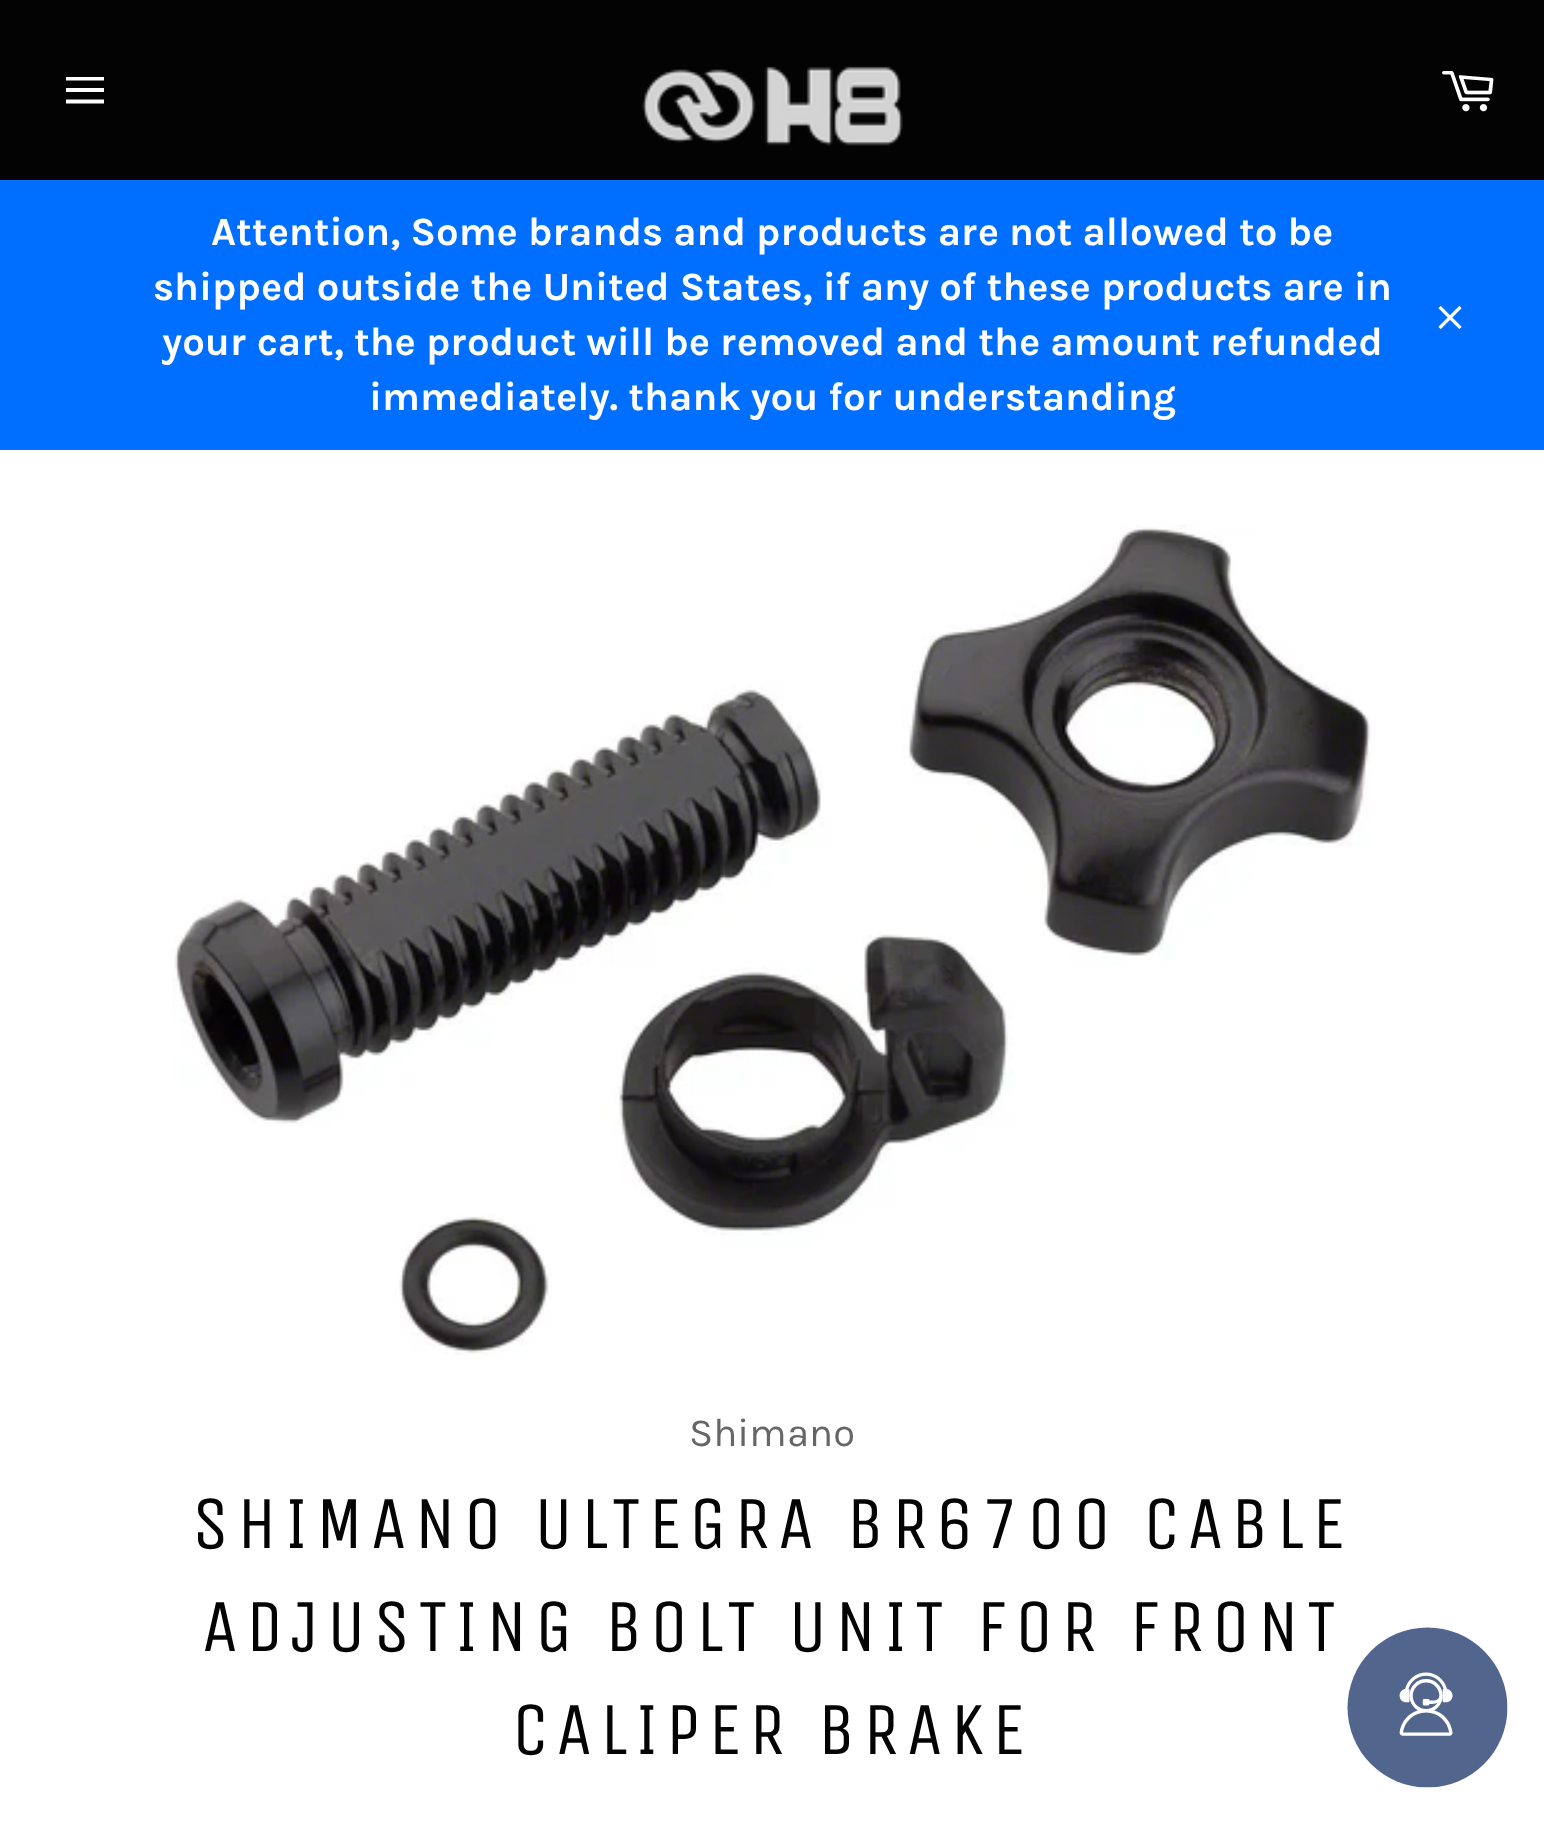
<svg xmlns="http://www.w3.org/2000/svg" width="1544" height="1824">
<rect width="100%" height="100%" fill="#030303"/>
<path d="M66 88h38v4h-38zm0-11h38v3.5h-38zm0 22.5h38v4h-38z" fill="#fff"/>
<image x="642" y="66" width="261" height="80" href="media/1.png"/>
<image x="1442" y="71" width="52" height="41" href="media/2.png"/>
<rect y="180" width="1544" height="270" fill="#006eff"/>
<text x="211" y="245" style="font-family:Karla;font-size:40px;font-weight:bold;fill:#fff">Attention, Some brands and products are not allowed to be</text>
<text x="153" y="300" style="font-family:Karla;font-size:40px;font-weight:bold;fill:#fff">shipped outside the United States, if any of these products are in</text>
<text x="162" y="355" style="font-family:Karla;font-size:40px;font-weight:bold;fill:#fff">your cart, the product will be removed and the amount refunded</text>
<text x="369" y="410" style="font-family:Karla;font-size:40px;font-weight:bold;fill:#fff">immediately. thank you for understanding</text>
<image x="1438" y="306" width="24" height="23" href="media/3.png"/>
<rect y="450" width="1544" height="1374" fill="#fff"/>
<image x="172" y="525" width="1199" height="830" href="media/4.png"/>
<text x="689" y="1446" style="font-family:Karla;font-size:40px;fill:#666">Shimano</text>
<text x="192" y="1548" style="font-family:Unica One;font-size:75px;letter-spacing:7.5px;fill:#030303">SHIMANO ULTEGRA BR6700 CABLE</text>
<text x="202" y="1651" style="font-family:Unica One;font-size:75px;letter-spacing:7.5px;fill:#030303">ADJUSTING BOLT UNIT FOR FRONT</text>
<text x="512" y="1754" style="font-family:Unica One;font-size:75px;letter-spacing:7.5px;fill:#030303">CALIPER BRAKE</text>
<image x="1347" y="1627" width="161" height="161" href="media/5.png"/>
</svg>
